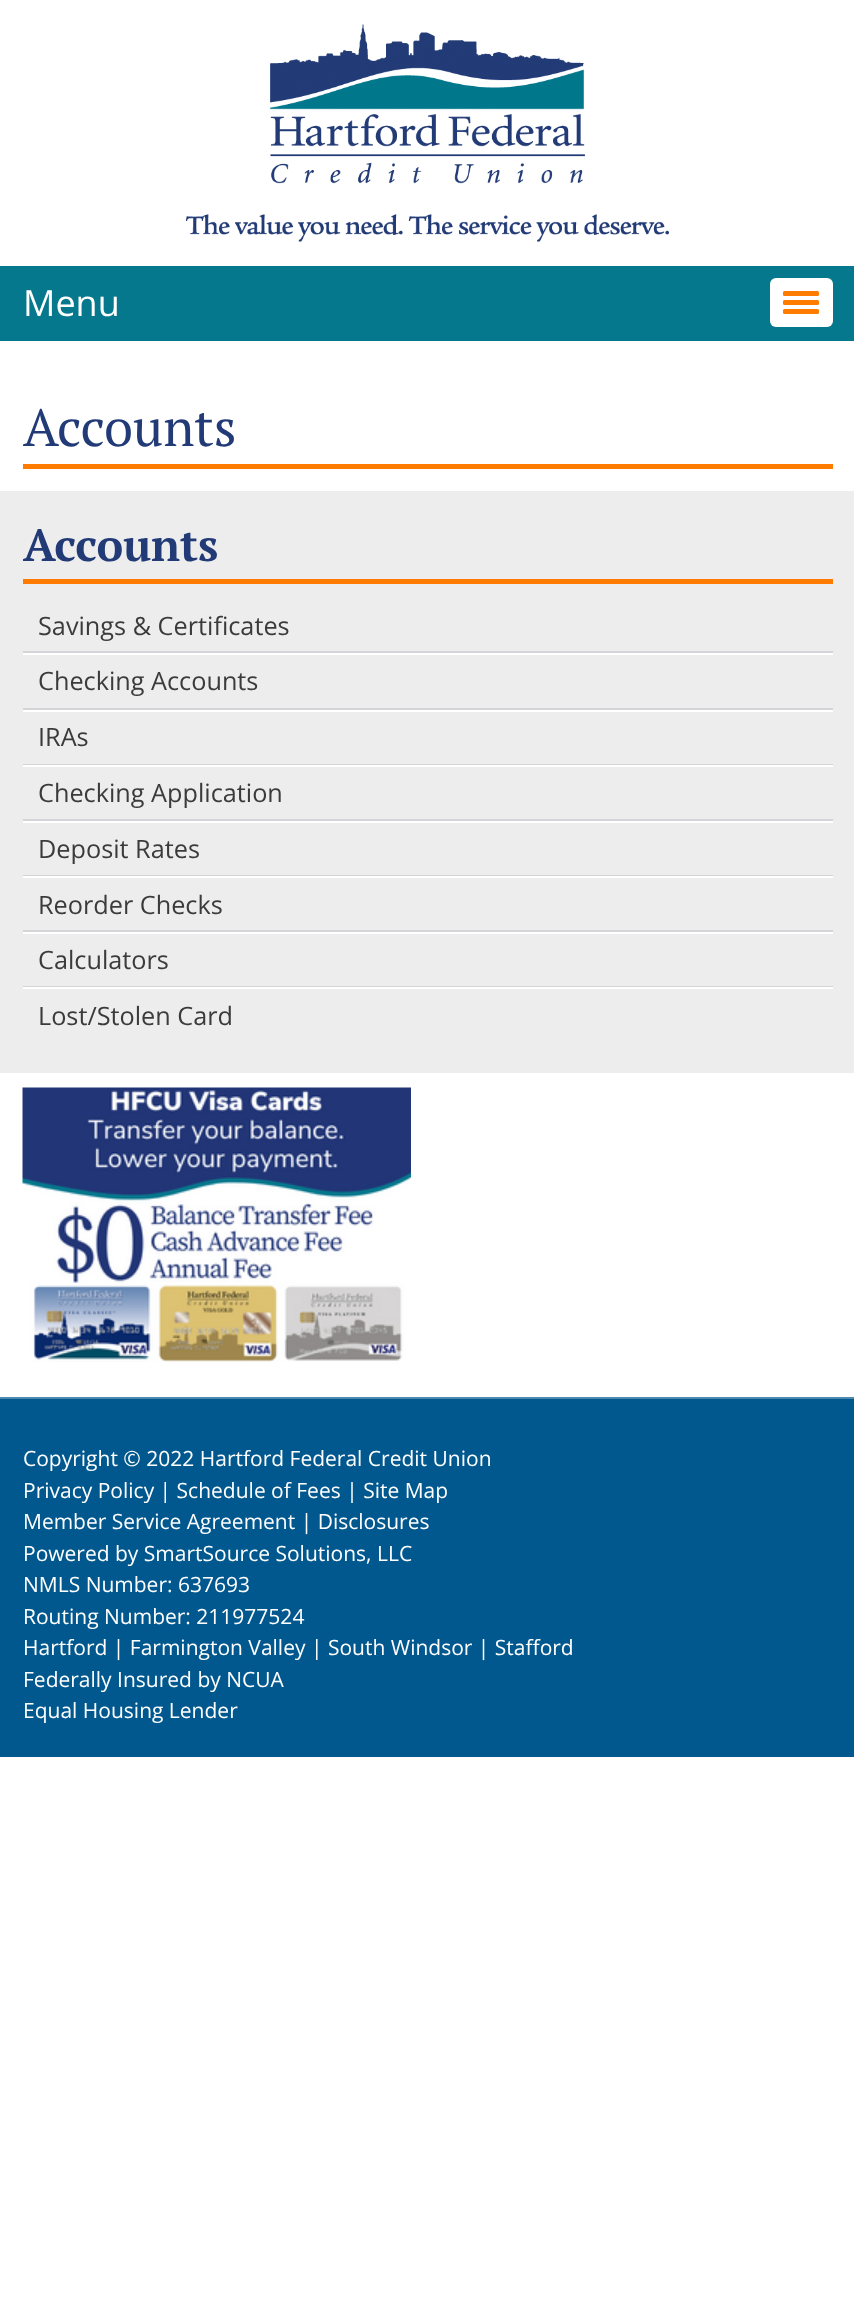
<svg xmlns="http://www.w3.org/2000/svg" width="854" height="2302">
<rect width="100%" height="100%" fill="#fff"/>
<image x="186" y="24" width="483" height="218" href="media/1.png"/>
<rect y="266" width="854" height="75" fill="#06788d"/>
<text x="23" y="316" style="font-family:Open Sans;font-size:36px;fill:#fff">Menu</text>
<rect x="770" y="278" width="63" height="49" rx="6" fill="#fff"/>
<rect x="783" y="291" width="36" height="5" rx="1.5" fill="#ff7c00"/>
<rect x="783" y="300" width="36" height="5" rx="1.5" fill="#ff7c00"/>
<rect x="783" y="309" width="36" height="5" rx="1.5" fill="#ff7c00"/>
<rect x="23" y="464" width="810" height="5" fill="#ff7c00"/>
<text x="23" y="446" style="font-family:PT Serif;font-size:52.5px;fill:#223b77">Accounts</text>
<rect y="491" width="854" height="582" fill="#ededed"/>
<rect x="23" y="579" width="810" height="5" fill="#ff7c00"/>
<text x="23" y="561" style="font-family:PT Serif;font-size:45px;font-weight:bold;fill:#223b77">Accounts</text>
<rect x="23" y="651" width="810" height="2" fill="#d2d4d7"/>
<text x="38" y="635" style="font-family:Open Sans;font-size:25.25px;fill:#3b3b3b">Savings &amp; Certificates</text>
<rect x="23" y="653" width="810" height="2" fill="#fff"/>
<rect x="23" y="708" width="810" height="2" fill="#d2d4d7"/>
<text x="38" y="690" style="font-family:Open Sans;font-size:25.25px;fill:#3b3b3b">Checking Accounts</text>
<rect x="23" y="710" width="810" height="2" fill="#fff"/>
<rect x="23" y="764" width="810" height="1" fill="#d2d4d7"/>
<text x="38" y="746" style="font-family:Open Sans;font-size:25.25px;fill:#3b3b3b">IRAs</text>
<rect x="23" y="765" width="810" height="2" fill="#fff"/>
<rect x="23" y="819" width="810" height="2" fill="#d2d4d7"/>
<text x="38" y="802" style="font-family:Open Sans;font-size:25.25px;fill:#3b3b3b">Checking Application</text>
<rect x="23" y="821" width="810" height="2" fill="#fff"/>
<rect x="23" y="875" width="810" height="1" fill="#d2d4d7"/>
<text x="38" y="858" style="font-family:Open Sans;font-size:25.25px;fill:#3b3b3b">Deposit Rates</text>
<rect x="23" y="876" width="810" height="2" fill="#fff"/>
<rect x="23" y="930" width="810" height="2" fill="#d2d4d7"/>
<text x="38" y="914" style="font-family:Open Sans;font-size:25.25px;fill:#3b3b3b">Reorder Checks</text>
<rect x="23" y="932" width="810" height="2" fill="#fff"/>
<rect x="23" y="986" width="810" height="1" fill="#d2d4d7"/>
<text x="38" y="969" style="font-family:Open Sans;font-size:25.25px;fill:#3b3b3b">Calculators</text>
<rect x="23" y="987" width="810" height="2" fill="#fff"/>
<text x="38" y="1025" style="font-family:Open Sans;font-size:25.25px;fill:#3b3b3b">Lost/Stolen Card</text>
<image x="22" y="1087" width="389" height="275" href="media/2.png"/>
<rect y="1399" width="854" height="358" fill="#00588e"/>
<rect y="1397" width="854" height="2" fill="#4d8ab0"/>
<text x="23" y="1466" style="font-family:Open Sans;font-size:21px;fill:#fff">Copyright © 2022 Hartford Federal Credit Union</text>
<text x="23" y="1498" style="font-family:Open Sans;font-size:21px;fill:#fff">Privacy Policy | Schedule of Fees | Site Map</text>
<text x="23" y="1529" style="font-family:Open Sans;font-size:21px;fill:#fff">Member Service Agreement | Disclosures</text>
<text x="23" y="1561" style="font-family:Open Sans;font-size:21px;fill:#fff">Powered by SmartSource Solutions, LLC</text>
<text x="23" y="1592" style="font-family:Open Sans;font-size:21px;fill:#fff">NMLS Number: 637693</text>
<text x="23" y="1624" style="font-family:Open Sans;font-size:21px;fill:#fff">Routing Number: 211977524</text>
<text x="23" y="1655" style="font-family:Open Sans;font-size:21px;fill:#fff">Hartford | Farmington Valley | South Windsor | Stafford</text>
<text x="23" y="1687" style="font-family:Open Sans;font-size:21px;fill:#fff">Federally Insured by NCUA</text>
<text x="23" y="1718" style="font-family:Open Sans;font-size:21px;fill:#fff">Equal Housing Lender</text>
</svg>
